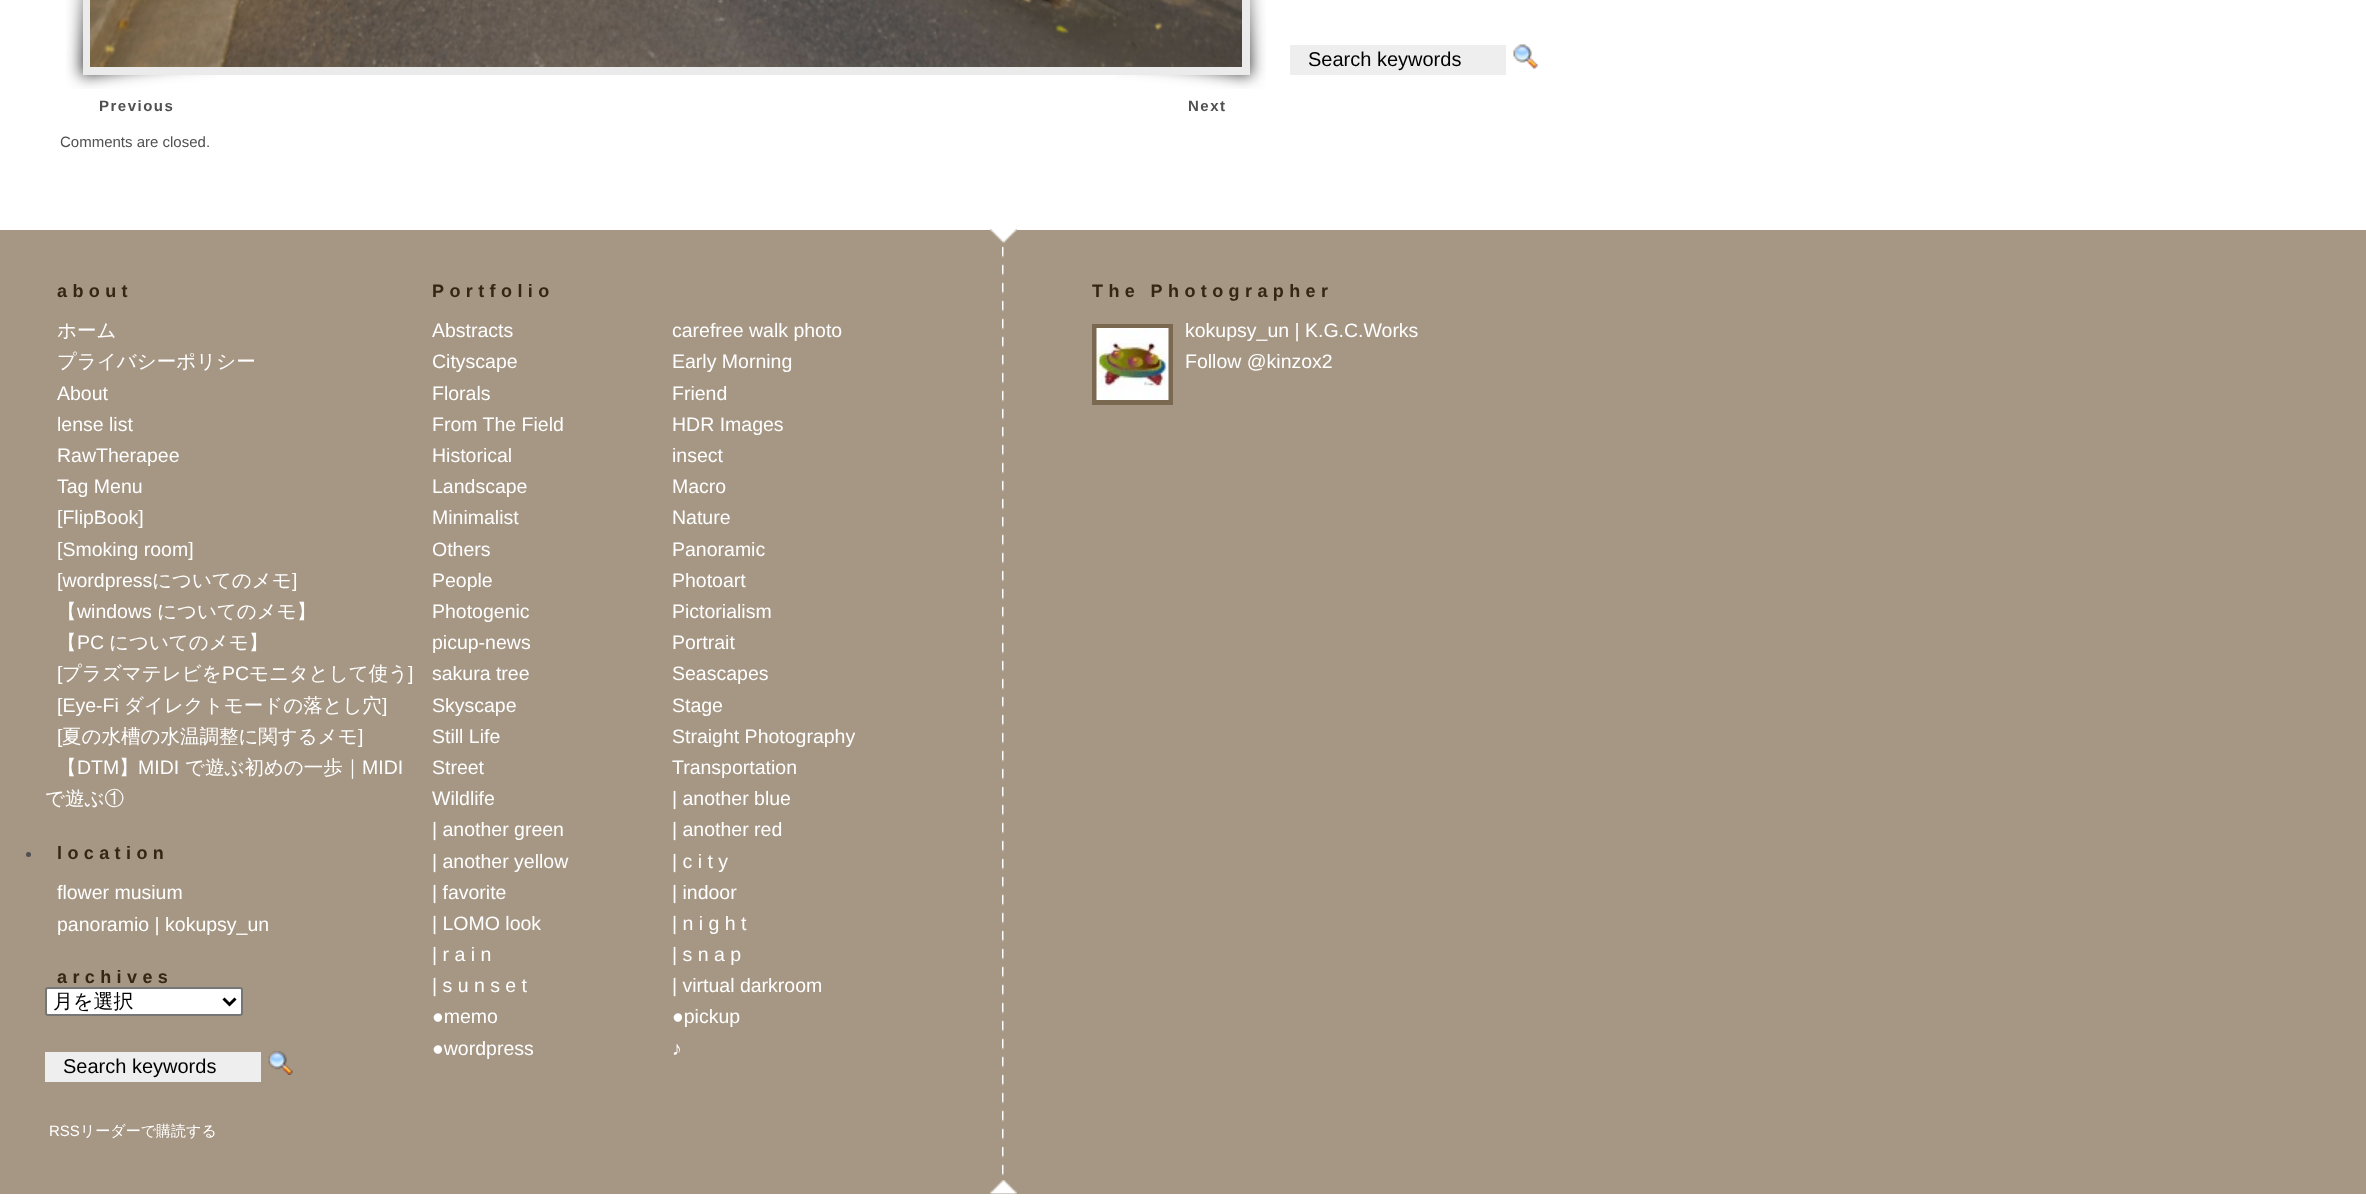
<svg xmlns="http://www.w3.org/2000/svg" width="2366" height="1204">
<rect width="100%" height="100%" fill="#fff"/>
<rect x="1290" y="45" width="216" height="30" fill="#eee"/>
<text x="1308" y="66" style="font-family:Liberation Sans;font-size:20px;fill:#000">Search keywords</text>
<image x="1513" y="44" width="25" height="25" href="media/1.png"/>
<image x="66" y="0" width="150" height="89" href="media/2.png"/>
<image x="1116" y="0" width="150" height="89" href="media/3.png"/>
<rect x="83" width="1167" height="75" fill="#ebebeb"/>
<image x="90" y="0" width="1152" height="67" href="media/4.png"/>
<text x="99" y="111" style="font-family:Liberation Sans;font-size:15px;font-weight:bold;letter-spacing:1.5px;fill:#505050">Previous</text>
<text x="1188" y="111" style="font-family:Liberation Sans;font-size:15px;font-weight:bold;letter-spacing:1.5px;fill:#505050">Next</text>
<text x="60" y="147" style="font-family:Liberation Sans;font-size:15px;fill:#505050">Comments are closed.</text>
<rect y="230" width="2366" height="964" fill="#a69785"/>
<image x="1002" y="242" width="3" height="952" href="media/5.png"/>
<image x="990" y="229" width="27" height="14" href="media/6.png"/>
<text x="57" y="297" style="font-family:Liberation Sans;font-size:18px;font-weight:bold;letter-spacing:5.4px;fill:#352511">about</text>
<text x="57" y="337" style="font-family:WenQuanYi Zen Hei;font-size:19.5px;font-weight:500;fill:#fff">ホーム</text>
<text x="57" y="368" style="font-family:WenQuanYi Zen Hei;font-size:19.5px;font-weight:500;fill:#fff">プライバシーポリシー</text>
<text x="57" y="400" style="font-family:Liberation Sans;font-size:19.5px;fill:#fff">About</text>
<text x="57" y="431" style="font-family:Liberation Sans;font-size:19.5px;fill:#fff">lense list</text>
<text x="57" y="462" style="font-family:Liberation Sans;font-size:19.5px;fill:#fff">RawTherapee</text>
<text x="57" y="493" style="font-family:Liberation Sans;font-size:19.5px;fill:#fff">Tag Menu</text>
<text x="57" y="524" style="font-family:Liberation Sans;font-size:19.5px;fill:#fff">[FlipBook]</text>
<text x="57" y="556" style="font-family:Liberation Sans;font-size:19.5px;fill:#fff">[Smoking room]</text>
<text x="57" y="587" style="font-family:Liberation Sans;font-size:19.5px;fill:#fff">[wordpress</text>
<text x="152" y="587" style="font-family:WenQuanYi Zen Hei;font-size:19.5px;font-weight:500;fill:#fff">についてのメモ</text>
<text x="292" y="587" style="font-family:Liberation Sans;font-size:19.5px;fill:#fff">]</text>
<text x="57" y="618" style="font-family:WenQuanYi Zen Hei;font-size:19.5px;font-weight:500;fill:#fff">【</text>
<text x="77" y="618" style="font-family:Liberation Sans;font-size:19.5px;fill:#fff">windows</text>
<text x="157" y="618" style="font-family:WenQuanYi Zen Hei;font-size:19.5px;font-weight:500;fill:#fff">についてのメモ】</text>
<text x="57" y="649" style="font-family:WenQuanYi Zen Hei;font-size:19.5px;font-weight:500;fill:#fff">【</text>
<text x="77" y="649" style="font-family:Liberation Sans;font-size:19.5px;fill:#fff">PC</text>
<text x="109" y="649" style="font-family:WenQuanYi Zen Hei;font-size:19.5px;font-weight:500;fill:#fff">についてのメモ】</text>
<text x="57" y="680" style="font-family:Liberation Sans;font-size:19.5px;fill:#fff">[</text>
<text x="62" y="680" style="font-family:WenQuanYi Zen Hei;font-size:19.5px;font-weight:500;fill:#fff">プラズマテレビを</text>
<text x="222" y="680" style="font-family:Liberation Sans;font-size:19.5px;fill:#fff">PC</text>
<text x="249" y="680" style="font-family:WenQuanYi Zen Hei;font-size:19.5px;font-weight:500;fill:#fff">モニタとして使う</text>
<text x="408" y="680" style="font-family:Liberation Sans;font-size:19.5px;fill:#fff">]</text>
<text x="57" y="712" style="font-family:Liberation Sans;font-size:19.5px;fill:#fff">[Eye-Fi</text>
<text x="124" y="712" style="font-family:WenQuanYi Zen Hei;font-size:19.5px;font-weight:500;fill:#fff">ダイレクトモードの落とし穴</text>
<text x="382" y="712" style="font-family:Liberation Sans;font-size:19.5px;fill:#fff">]</text>
<text x="57" y="743" style="font-family:Liberation Sans;font-size:19.5px;fill:#fff">[</text>
<text x="62" y="743" style="font-family:WenQuanYi Zen Hei;font-size:19.5px;font-weight:500;fill:#fff">夏の水槽の水温調整に関するメモ</text>
<text x="358" y="743" style="font-family:Liberation Sans;font-size:19.5px;fill:#fff">]</text>
<text x="57" y="774" style="font-family:WenQuanYi Zen Hei;font-size:19.5px;font-weight:500;fill:#fff">【</text>
<text x="77" y="774" style="font-family:Liberation Sans;font-size:19.5px;fill:#fff">DTM</text>
<text x="119" y="774" style="font-family:WenQuanYi Zen Hei;font-size:19.5px;font-weight:500;fill:#fff">】</text>
<text x="138" y="774" style="font-family:Liberation Sans;font-size:19.5px;fill:#fff">MIDI</text>
<text x="185" y="774" style="font-family:WenQuanYi Zen Hei;font-size:19.5px;font-weight:500;fill:#fff">で遊ぶ初めの一歩｜</text>
<text x="362" y="774" style="font-family:Liberation Sans;font-size:19.5px;fill:#fff">MIDI</text>
<text x="45" y="805" style="font-family:WenQuanYi Zen Hei;font-size:19.5px;font-weight:500;fill:#fff">で遊ぶ①</text>
<circle cx="28.5" cy="854.5" r="2.5" fill="#505050"/>
<text x="57" y="859" style="font-family:Liberation Sans;font-size:18px;font-weight:bold;letter-spacing:5.4px;fill:#352511">location</text>
<text x="57" y="899" style="font-family:Liberation Sans;font-size:19.5px;fill:#fff">flower musium</text>
<text x="57" y="931" style="font-family:Liberation Sans;font-size:19.5px;fill:#fff">panoramio | kokupsy_un</text>
<text x="57" y="983" style="font-family:Liberation Sans;font-size:18px;font-weight:bold;letter-spacing:5.4px;fill:#352511">archives</text>
<rect x="46" y="988" width="196" height="27" rx="2" fill="#fff" stroke="#767676" stroke-width="2"/>
<path d="M223.5 998.5l6 6l6-6" fill="none" stroke="#000" stroke-width="3"/>
<text x="53" y="1008" style="font-family:WenQuanYi Zen Hei;font-size:20px;font-weight:500;fill:#000">月を選択</text>
<rect x="45" y="1052" width="216" height="30" fill="#eee"/>
<text x="63" y="1073" style="font-family:Liberation Sans;font-size:20px;fill:#000">Search keywords</text>
<image x="268" y="1051" width="25" height="24" href="media/7.png"/>
<text x="49" y="1136" style="font-family:Liberation Sans;font-size:15px;fill:#fff">RSS</text>
<text x="80" y="1136" style="font-family:WenQuanYi Zen Hei;font-size:15px;font-weight:500;fill:#fff">リーダーで購読する</text>
<text x="432" y="297" style="font-family:Liberation Sans;font-size:18px;font-weight:bold;letter-spacing:5.4px;fill:#352511">Portfolio</text>
<text x="432" y="337" style="font-family:Liberation Sans;font-size:19.5px;fill:#fff">Abstracts</text>
<text x="672" y="337" style="font-family:Liberation Sans;font-size:19.5px;fill:#fff">carefree walk photo</text>
<text x="432" y="368" style="font-family:Liberation Sans;font-size:19.5px;fill:#fff">Cityscape</text>
<text x="672" y="368" style="font-family:Liberation Sans;font-size:19.5px;fill:#fff">Early Morning</text>
<text x="432" y="400" style="font-family:Liberation Sans;font-size:19.5px;fill:#fff">Florals</text>
<text x="672" y="400" style="font-family:Liberation Sans;font-size:19.5px;fill:#fff">Friend</text>
<text x="432" y="431" style="font-family:Liberation Sans;font-size:19.5px;fill:#fff">From The Field</text>
<text x="672" y="431" style="font-family:Liberation Sans;font-size:19.5px;fill:#fff">HDR Images</text>
<text x="432" y="462" style="font-family:Liberation Sans;font-size:19.5px;fill:#fff">Historical</text>
<text x="672" y="462" style="font-family:Liberation Sans;font-size:19.5px;fill:#fff">insect</text>
<text x="432" y="493" style="font-family:Liberation Sans;font-size:19.5px;fill:#fff">Landscape</text>
<text x="672" y="493" style="font-family:Liberation Sans;font-size:19.5px;fill:#fff">Macro</text>
<text x="432" y="524" style="font-family:Liberation Sans;font-size:19.5px;fill:#fff">Minimalist</text>
<text x="672" y="524" style="font-family:Liberation Sans;font-size:19.5px;fill:#fff">Nature</text>
<text x="432" y="556" style="font-family:Liberation Sans;font-size:19.5px;fill:#fff">Others</text>
<text x="672" y="556" style="font-family:Liberation Sans;font-size:19.5px;fill:#fff">Panoramic</text>
<text x="432" y="587" style="font-family:Liberation Sans;font-size:19.5px;fill:#fff">People</text>
<text x="672" y="587" style="font-family:Liberation Sans;font-size:19.5px;fill:#fff">Photoart</text>
<text x="432" y="618" style="font-family:Liberation Sans;font-size:19.5px;fill:#fff">Photogenic</text>
<text x="672" y="618" style="font-family:Liberation Sans;font-size:19.5px;fill:#fff">Pictorialism</text>
<text x="432" y="649" style="font-family:Liberation Sans;font-size:19.5px;fill:#fff">picup-news</text>
<text x="672" y="649" style="font-family:Liberation Sans;font-size:19.5px;fill:#fff">Portrait</text>
<text x="432" y="680" style="font-family:Liberation Sans;font-size:19.5px;fill:#fff">sakura tree</text>
<text x="672" y="680" style="font-family:Liberation Sans;font-size:19.5px;fill:#fff">Seascapes</text>
<text x="432" y="712" style="font-family:Liberation Sans;font-size:19.5px;fill:#fff">Skyscape</text>
<text x="672" y="712" style="font-family:Liberation Sans;font-size:19.5px;fill:#fff">Stage</text>
<text x="432" y="743" style="font-family:Liberation Sans;font-size:19.5px;fill:#fff">Still Life</text>
<text x="672" y="743" style="font-family:Liberation Sans;font-size:19.5px;fill:#fff">Straight Photography</text>
<text x="432" y="774" style="font-family:Liberation Sans;font-size:19.5px;fill:#fff">Street</text>
<text x="672" y="774" style="font-family:Liberation Sans;font-size:19.5px;fill:#fff">Transportation</text>
<text x="432" y="805" style="font-family:Liberation Sans;font-size:19.5px;fill:#fff">Wildlife</text>
<text x="672" y="805" style="font-family:Liberation Sans;font-size:19.5px;fill:#fff">| another blue</text>
<text x="432" y="836" style="font-family:Liberation Sans;font-size:19.5px;fill:#fff">| another green</text>
<text x="672" y="836" style="font-family:Liberation Sans;font-size:19.5px;fill:#fff">| another red</text>
<text x="432" y="868" style="font-family:Liberation Sans;font-size:19.5px;fill:#fff">| another yellow</text>
<text x="672" y="868" style="font-family:Liberation Sans;font-size:19.5px;fill:#fff">| c i t y</text>
<text x="432" y="899" style="font-family:Liberation Sans;font-size:19.5px;fill:#fff">| favorite</text>
<text x="672" y="899" style="font-family:Liberation Sans;font-size:19.5px;fill:#fff">| indoor</text>
<text x="432" y="930" style="font-family:Liberation Sans;font-size:19.5px;fill:#fff">| LOMO look</text>
<text x="672" y="930" style="font-family:Liberation Sans;font-size:19.5px;fill:#fff">| n i g h t</text>
<text x="432" y="961" style="font-family:Liberation Sans;font-size:19.5px;fill:#fff">| r a i n</text>
<text x="672" y="961" style="font-family:Liberation Sans;font-size:19.5px;fill:#fff">| s n a p</text>
<text x="432" y="992" style="font-family:Liberation Sans;font-size:19.5px;fill:#fff">| s u n s e t</text>
<text x="672" y="992" style="font-family:Liberation Sans;font-size:19.5px;fill:#fff">| virtual darkroom</text>
<text x="432" y="1023" style="font-family:Liberation Sans;font-size:19.5px;fill:#fff">●memo</text>
<text x="672" y="1023" style="font-family:Liberation Sans;font-size:19.5px;fill:#fff">●pickup</text>
<text x="432" y="1055" style="font-family:Liberation Sans;font-size:19.5px;fill:#fff">●wordpress</text>
<text x="672" y="1055" style="font-family:Liberation Sans;font-size:19.5px;fill:#fff">♪</text>
<text x="1092" y="297" style="font-family:Liberation Sans;font-size:18px;font-weight:bold;letter-spacing:5.4px;fill:#352511">The Photographer</text>
<rect x="1092" y="324" width="81" height="81" fill="#7b6851"/>
<image x="1096" y="328" width="73" height="72" href="media/8.png"/>
<text x="1185" y="337" style="font-family:Liberation Sans;font-size:19.5px;fill:#fff">kokupsy_un | K.G.C.Works</text>
<text x="1185" y="368" style="font-family:Liberation Sans;font-size:19.5px;fill:#fff">Follow @kinzox2</text>
<image x="990" y="1180" width="27" height="14" href="media/9.png"/>
</svg>
